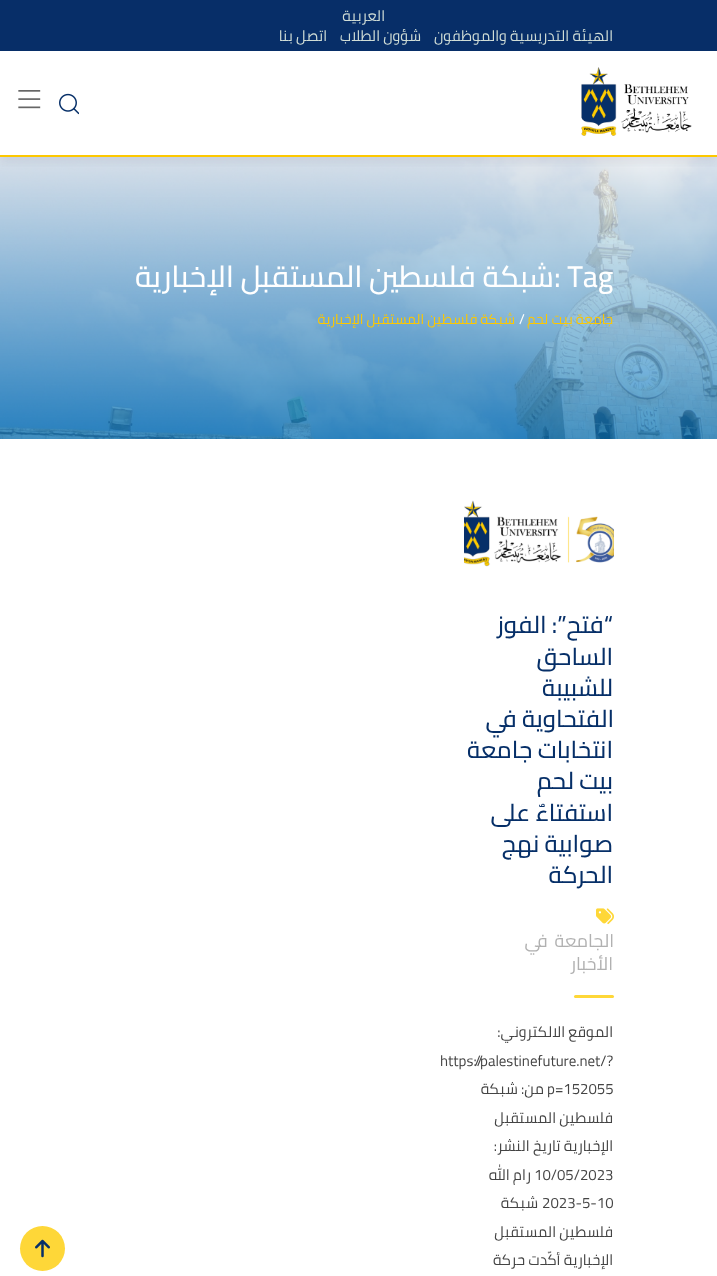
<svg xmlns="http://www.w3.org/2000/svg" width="717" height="1276">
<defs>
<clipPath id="clip1"><rect x="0" y="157" width="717" height="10"/></clipPath>
</defs>
<rect width="100%" height="100%" fill="#fff"/>
<rect width="717" height="51" fill="#072e68"/>
<text x="385" y="21" style="font-family:Cairo;font-size:15px;direction:rtl;fill:#d0ddd6">العربية</text>
<text x="613" y="41" style="font-family:Cairo;font-size:15px;direction:rtl;fill:#d0ddd6">الهيئة التدريسية والموظفون</text>
<text x="421" y="41" style="font-family:Cairo;font-size:15px;direction:rtl;fill:#d0ddd6">شؤون الطلاب</text>
<text x="327" y="41" style="font-family:Cairo;font-size:15px;direction:rtl;fill:#d0ddd6">اتصل بنا</text>
<image x="0" y="157" width="717" height="282" href="media/3.png"/>
<g clip-path="url(#clip1)">
<rect y="56" width="717" height="106" fill="#5765801f" filter="blur(5px)"/>
</g>
<rect y="155" width="717" height="2" fill="#fdc800"/>
<image x="581" y="67" width="111" height="69" href="media/1.png"/>
<image x="59" y="93" width="20" height="22" href="media/2.png"/>
<text x="35" y="110" transform="rotate(-90 35 110)" style="font-family:Liberation Serif;font-size:24px;font-weight:bold;letter-spacing:-1.5px;fill:#666">| | |</text>
<text x="554" y="287" style="font-family:Cairo;font-size:30px;font-weight:500;fill:#fff">: Tag</text>
<text x="554" y="287" style="font-family:Cairo;font-size:30px;font-weight:500;direction:rtl;fill:#fff">شبكة فلسطين المستقبل الإخبارية</text>
<text x="613" y="324" style="font-family:Cairo;font-size:14px;direction:rtl;fill:#fdc800">جامعة بيت لحم</text>
<text x="519" y="324" style="font-family:Cairo;font-size:14px;fill:#fff">/</text>
<text x="515" y="324" style="font-family:Cairo;font-size:14px;direction:rtl;fill:#fdc800">شبكة فلسطين المستقبل الإخبارية</text>
<image x="464" y="500" width="150" height="67" href="media/4.png"/>
<text x="613" y="633" style="font-family:Cairo;font-size:24px;font-weight:500;direction:rtl;fill:#062f68">“فتح”: الفوز</text>
<text x="613" y="665" style="font-family:Cairo;font-size:24px;font-weight:500;direction:rtl;fill:#062f68">الساحق</text>
<text x="613" y="696" style="font-family:Cairo;font-size:24px;font-weight:500;direction:rtl;fill:#062f68">للشبيبة</text>
<text x="614" y="727" style="font-family:Cairo;font-size:24px;font-weight:500;direction:rtl;fill:#062f68">الفتحاوية في</text>
<text x="613" y="758" style="font-family:Cairo;font-size:24px;font-weight:500;direction:rtl;fill:#062f68">انتخابات جامعة</text>
<text x="613" y="789" style="font-family:Cairo;font-size:24px;font-weight:500;direction:rtl;fill:#062f68">بيت لحم</text>
<text x="613" y="821" style="font-family:Cairo;font-size:24px;font-weight:500;direction:rtl;fill:#062f68">استفتاءٌ على</text>
<text x="613" y="852" style="font-family:Cairo;font-size:24px;font-weight:500;direction:rtl;fill:#062f68">صوابية نهج</text>
<text x="613" y="883" style="font-family:Cairo;font-size:24px;font-weight:500;direction:rtl;fill:#062f68">الحركة</text>
<image x="596" y="908" width="18" height="17" href="media/5.png"/>
<text x="614" y="947" word-spacing="3" style="font-family:'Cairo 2';font-size:18px;direction:rtl;fill:#b1b1b1">الجامعة في</text>
<text x="613" y="970" style="font-family:'Cairo 2';font-size:18px;direction:rtl;fill:#b1b1b1">الأخبار</text>
<rect x="574" y="995" width="40" height="3" rx="1.5" fill="#fed738"/>
<text x="613" y="1037" style="font-family:Cairo;font-size:15px;direction:rtl;fill:#444">الموقع الالكتروني:</text>
<text x="440" y="1066" style="font-family:Cairo;font-size:15px;fill:#444">https://palestinefuture.net/?</text>
<text x="547" y="1094" style="font-family:Cairo;font-size:15px;fill:#444">p=152055</text>
<text x="544" y="1094" style="font-family:Cairo;font-size:15px;direction:rtl;fill:#444">من: شبكة</text>
<text x="613" y="1123" style="font-family:Cairo;font-size:15px;direction:rtl;fill:#444">فلسطين المستقبل</text>
<text x="613" y="1151" style="font-family:Cairo;font-size:15px;direction:rtl;fill:#444">الإخبارية تاريخ النشر:</text>
<text x="534" y="1180" style="font-family:Cairo;font-size:15px;fill:#444">10/05/2023</text>
<text x="531" y="1180" style="font-family:Cairo;font-size:15px;direction:rtl;fill:#444">رام الله</text>
<text x="542" y="1208" style="font-family:Cairo;font-size:15px;fill:#444">2023-5-10</text>
<text x="538" y="1208" style="font-family:Cairo;font-size:15px;direction:rtl;fill:#444">شبكة</text>
<text x="613" y="1237" style="font-family:Cairo;font-size:15px;direction:rtl;fill:#444">فلسطين المستقبل</text>
<text x="613" y="1265" style="font-family:Cairo;font-size:15px;direction:rtl;fill:#444">الإخبارية أكّدت حركة</text>
<circle cx="42.5" cy="1248.5" r="22.5" fill="#fed738"/>
<image x="35" y="1239" width="15" height="19" href="media/6.png"/>
</svg>
